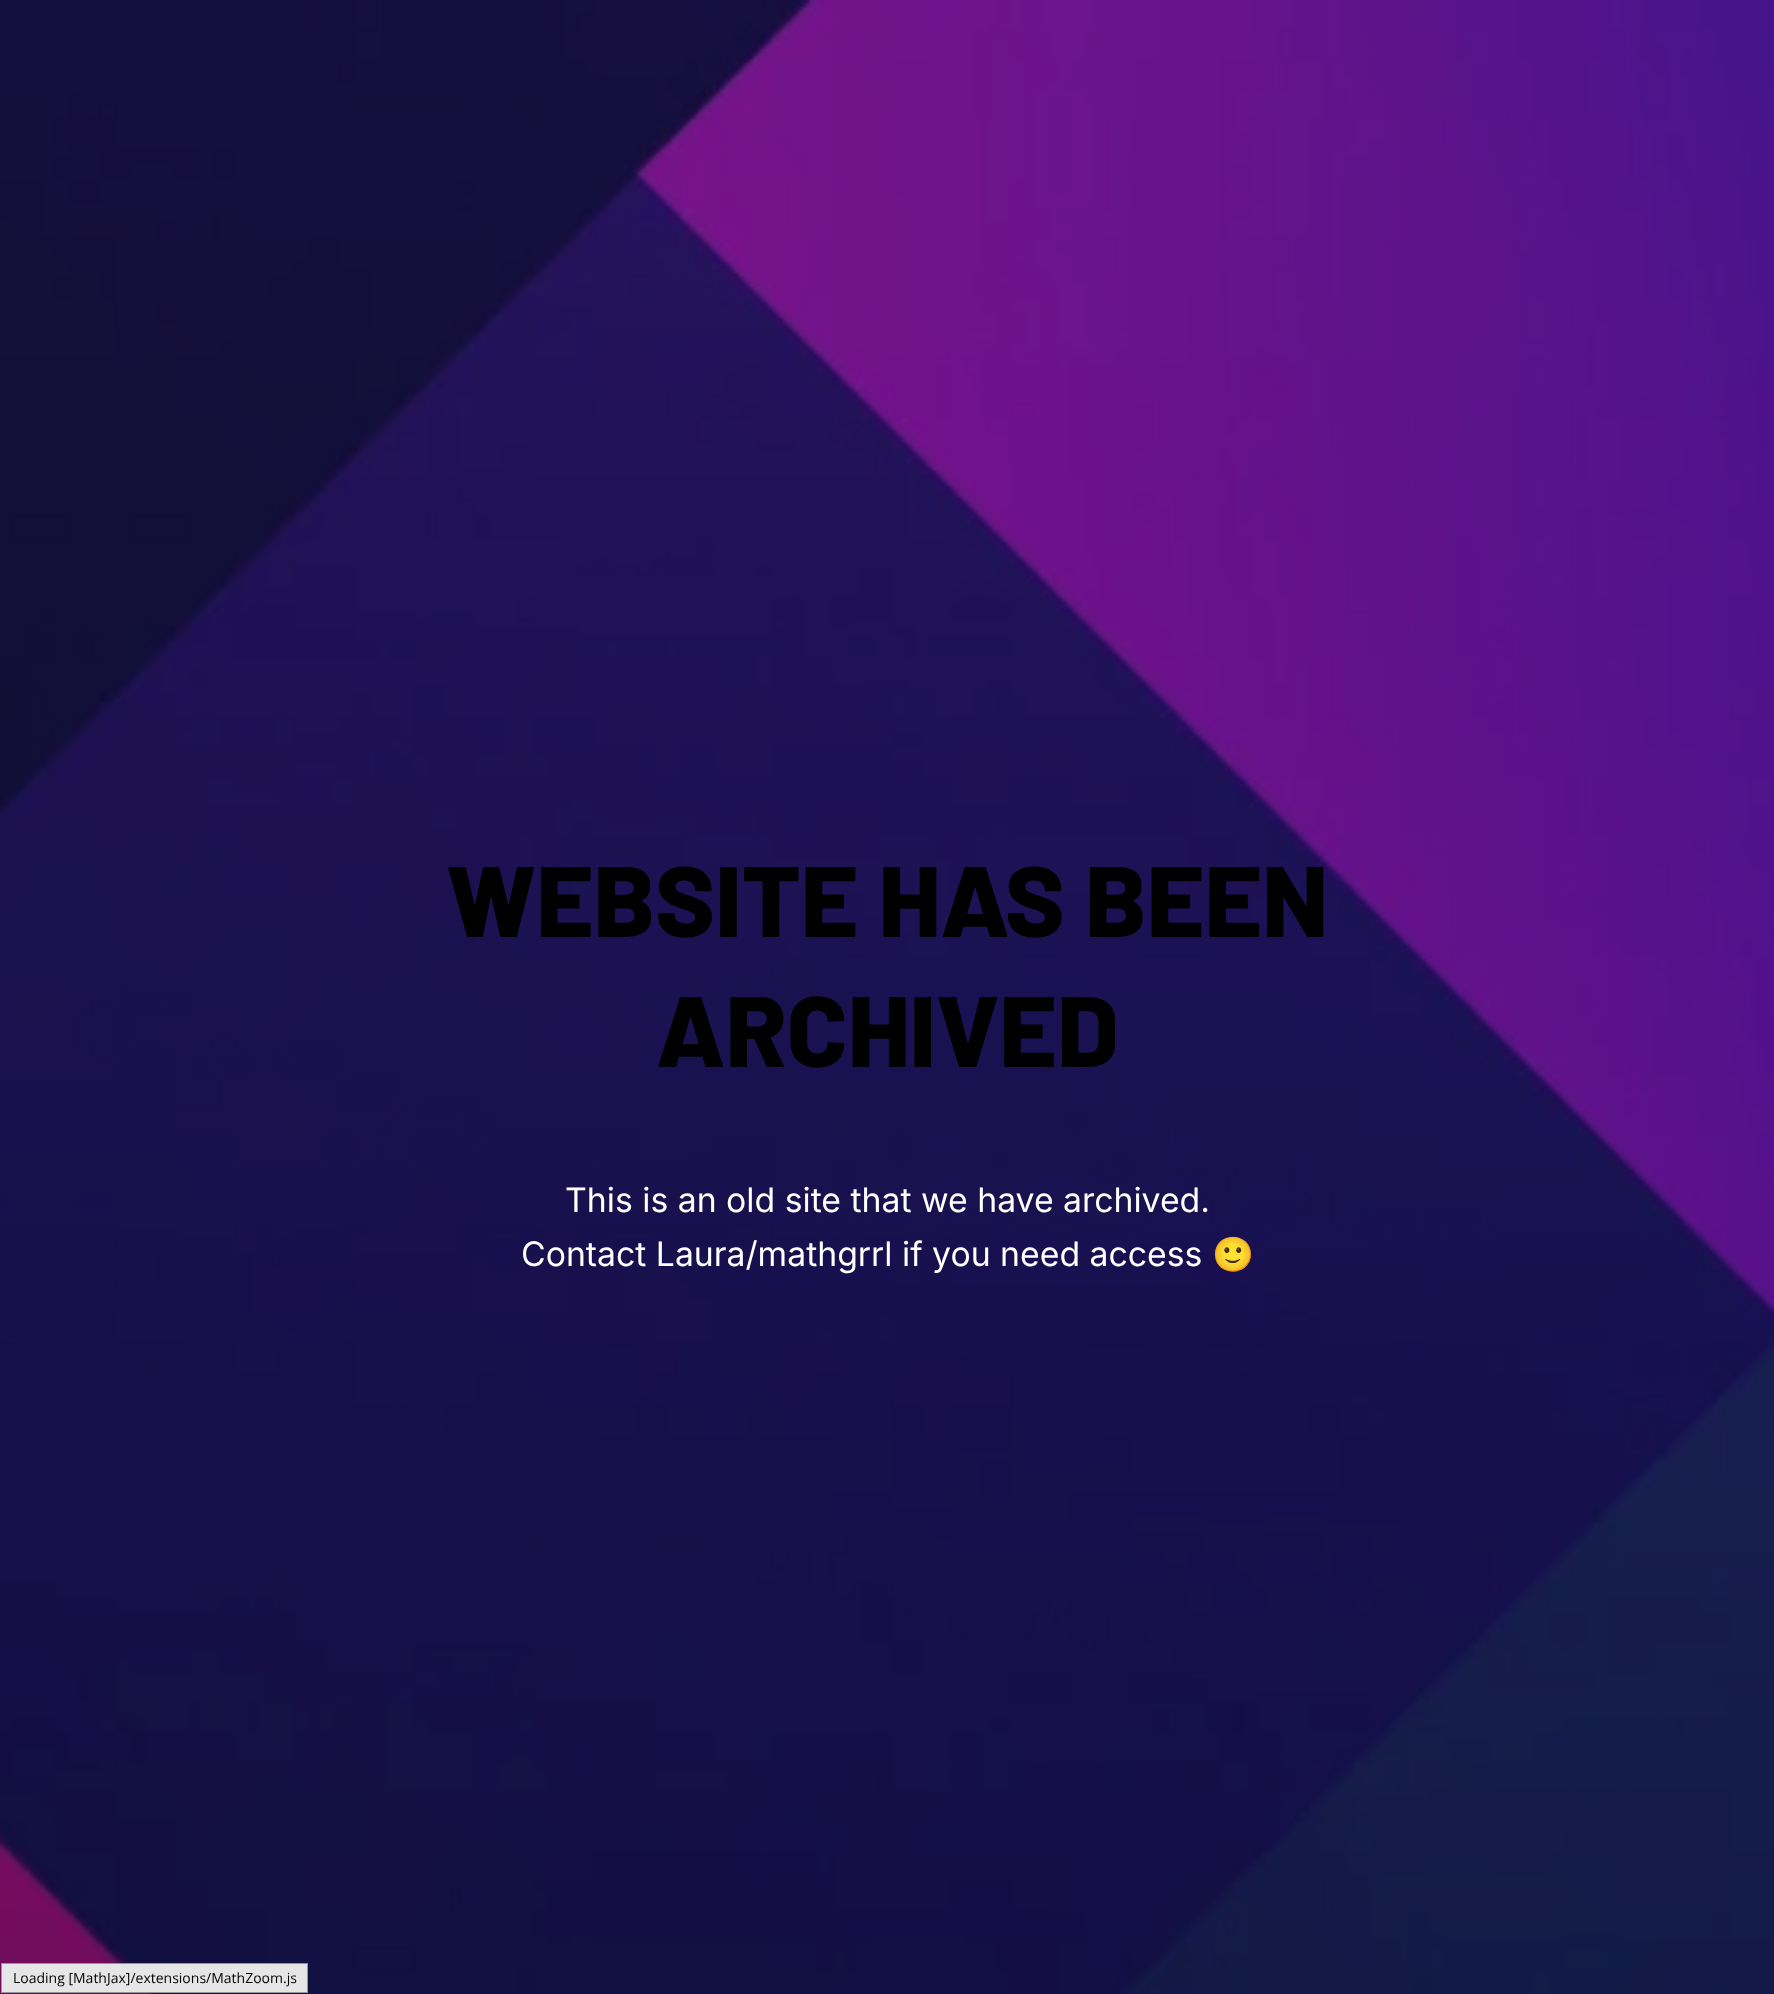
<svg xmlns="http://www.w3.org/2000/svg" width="1774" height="1994">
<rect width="100%" height="100%" fill="#191717"/>
<image x="0" y="0" width="1774" height="1994" href="media/1.png"/>
<text x="446" y="937" style="font-family:Barlow;font-size:100px;font-weight:800;fill:#000">WEBSITE HAS BEEN</text>
<text x="656" y="1067" style="font-family:Barlow;font-size:100px;font-weight:800;fill:#000">ARCHIVED</text>
<text x="565" y="1212" style="font-family:Inter;font-size:33.75px;fill:#fff">This is an old site that we have archived.</text>
<text x="521" y="1266" style="font-family:Inter;font-size:33.75px;fill:#fff">Contact Laura/mathgrrl if you need access</text>
<text x="1212" y="1266" style="font-family:Noto Color Emoji;font-size:33.75px;fill:#fff">🙂</text>
<rect x="1.5" y="1963.5" width="306" height="29" fill="#e6e6e6" stroke="#959595"/>
<text x="13" y="1983" style="font-family:Open Sans;font-size:14px;fill:#000">Loading [MathJax]/extensions/MathZoom.js</text>
</svg>
